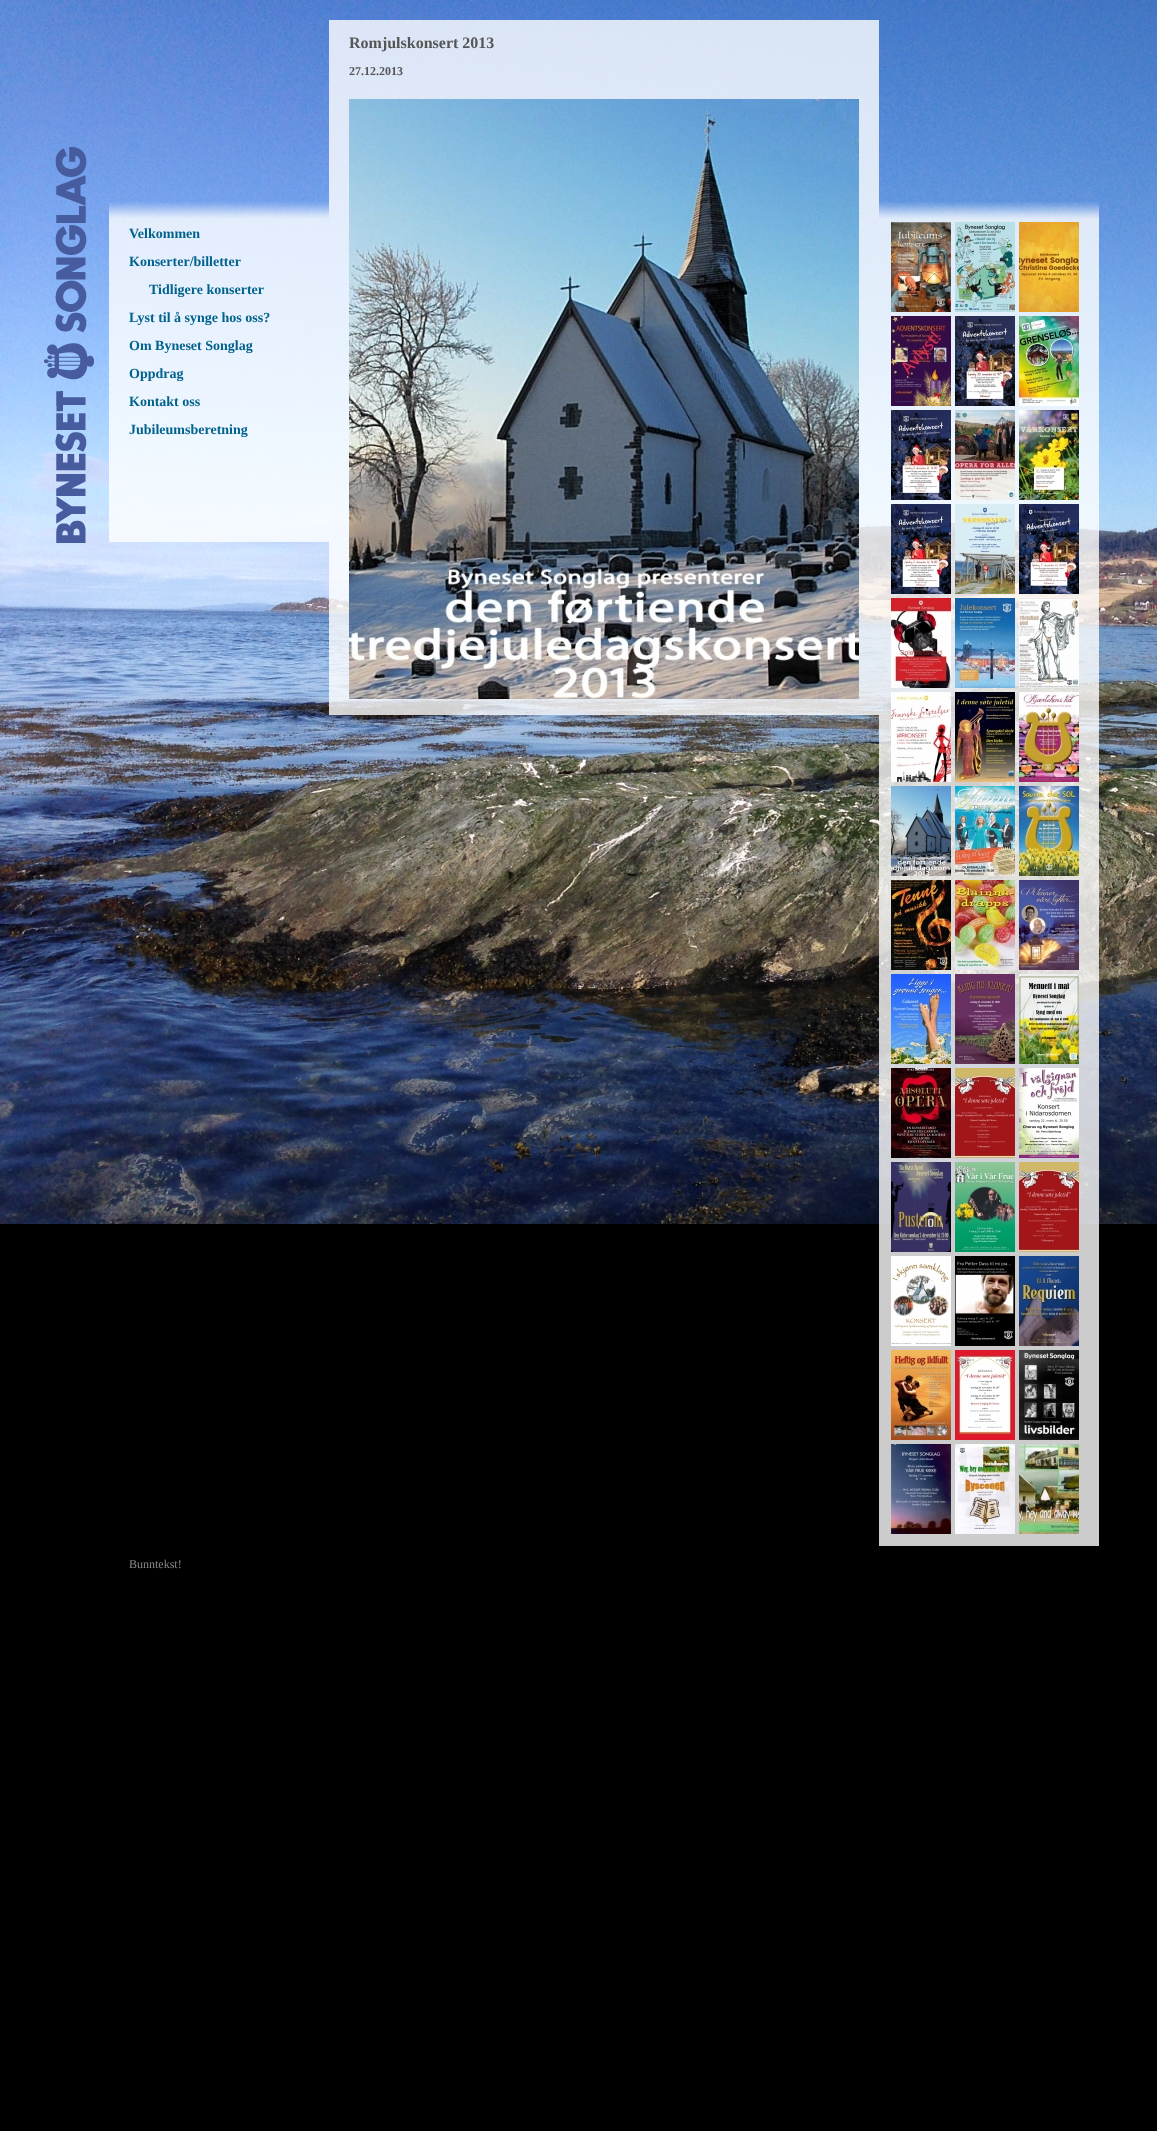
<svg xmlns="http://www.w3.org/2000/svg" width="1157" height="2131">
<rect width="100%" height="100%" fill="#000"/>
<image x="0" y="0" width="1157" height="1224" href="media/1.png"/>
<image x="44" y="147" width="50" height="396" href="media/2.png"/>
<rect x="329" y="20" width="550" height="695" fill="#ffffffcc"/>
<text x="349" y="48" style="font-family:Liberation Serif;font-size:16px;font-weight:bold;fill:#555">Romjulskonsert 2013</text>
<text x="349" y="75" style="font-family:Liberation Serif;font-size:12px;font-weight:bold;fill:#555">27.12.2013</text>
<image x="349" y="99" width="510" height="600" href="media/3.png"/>
<image x="109" y="202" width="220" height="18" href="media/4.png"/>
<rect x="109" y="220" width="220" height="322" fill="#ffffffcc"/>
<text x="129" y="238" style="font-family:Liberation Serif;font-size:14px;font-weight:bold;fill:#01628c">Velkommen</text>
<text x="129" y="266" style="font-family:Liberation Serif;font-size:14px;font-weight:bold;fill:#01628c">Konserter/billetter</text>
<text x="149" y="294" style="font-family:Liberation Serif;font-size:14px;font-weight:bold;fill:#01628c">Tidligere konserter</text>
<text x="129" y="322" style="font-family:Liberation Serif;font-size:14px;font-weight:bold;fill:#01628c">Lyst til å synge hos oss?</text>
<text x="129" y="350" style="font-family:Liberation Serif;font-size:14px;font-weight:bold;fill:#01628c">Om Byneset Songlag</text>
<text x="129" y="378" style="font-family:Liberation Serif;font-size:14px;font-weight:bold;fill:#01628c">Oppdrag</text>
<text x="129" y="406" style="font-family:Liberation Serif;font-size:14px;font-weight:bold;fill:#01628c">Kontakt oss</text>
<text x="129" y="434" style="font-family:Liberation Serif;font-size:14px;font-weight:bold;fill:#01628c">Jubileumsberetning</text>
<image x="879" y="202" width="220" height="18" href="media/5.png"/>
<rect x="879" y="220" width="220" height="1326" fill="#ffffffcc"/>
<image x="891" y="222" width="60" height="90" href="media/6.png"/>
<image x="955" y="222" width="60" height="90" href="media/7.png"/>
<image x="1019" y="222" width="60" height="90" href="media/8.png"/>
<image x="891" y="316" width="60" height="90" href="media/9.png"/>
<image x="955" y="316" width="60" height="90" href="media/10.png"/>
<image x="1019" y="316" width="60" height="90" href="media/11.png"/>
<image x="891" y="410" width="60" height="90" href="media/12.png"/>
<image x="955" y="410" width="60" height="90" href="media/13.png"/>
<image x="1019" y="410" width="60" height="90" href="media/14.png"/>
<image x="891" y="504" width="60" height="90" href="media/15.png"/>
<image x="955" y="504" width="60" height="90" href="media/16.png"/>
<image x="1019" y="504" width="60" height="90" href="media/17.png"/>
<image x="891" y="598" width="60" height="90" href="media/18.png"/>
<image x="955" y="598" width="60" height="90" href="media/19.png"/>
<image x="1019" y="598" width="60" height="90" href="media/20.png"/>
<image x="891" y="692" width="60" height="90" href="media/21.png"/>
<image x="955" y="692" width="60" height="90" href="media/22.png"/>
<image x="1019" y="692" width="60" height="90" href="media/23.png"/>
<image x="891" y="786" width="60" height="90" href="media/24.png"/>
<image x="955" y="786" width="60" height="90" href="media/25.png"/>
<image x="1019" y="786" width="60" height="90" href="media/26.png"/>
<image x="891" y="880" width="60" height="90" href="media/27.png"/>
<image x="955" y="880" width="60" height="90" href="media/28.png"/>
<image x="1019" y="880" width="60" height="90" href="media/29.png"/>
<image x="891" y="974" width="60" height="90" href="media/30.png"/>
<image x="955" y="974" width="60" height="90" href="media/31.png"/>
<image x="1019" y="974" width="60" height="90" href="media/32.png"/>
<image x="891" y="1068" width="60" height="90" href="media/33.png"/>
<image x="955" y="1068" width="60" height="90" href="media/34.png"/>
<image x="1019" y="1068" width="60" height="90" href="media/35.png"/>
<image x="891" y="1162" width="60" height="90" href="media/36.png"/>
<image x="955" y="1162" width="60" height="90" href="media/37.png"/>
<image x="1019" y="1162" width="60" height="90" href="media/38.png"/>
<image x="891" y="1256" width="60" height="90" href="media/39.png"/>
<image x="955" y="1256" width="60" height="90" href="media/40.png"/>
<image x="1019" y="1256" width="60" height="90" href="media/41.png"/>
<image x="891" y="1350" width="60" height="90" href="media/42.png"/>
<image x="955" y="1350" width="60" height="90" href="media/43.png"/>
<image x="1019" y="1350" width="60" height="90" href="media/44.png"/>
<image x="891" y="1444" width="60" height="90" href="media/45.png"/>
<image x="955" y="1444" width="60" height="90" href="media/46.png"/>
<image x="1019" y="1444" width="60" height="90" href="media/47.png"/>
<text x="129" y="1568" style="font-family:Liberation Serif;font-size:12px;fill:#888">Bunntekst!</text>
</svg>
